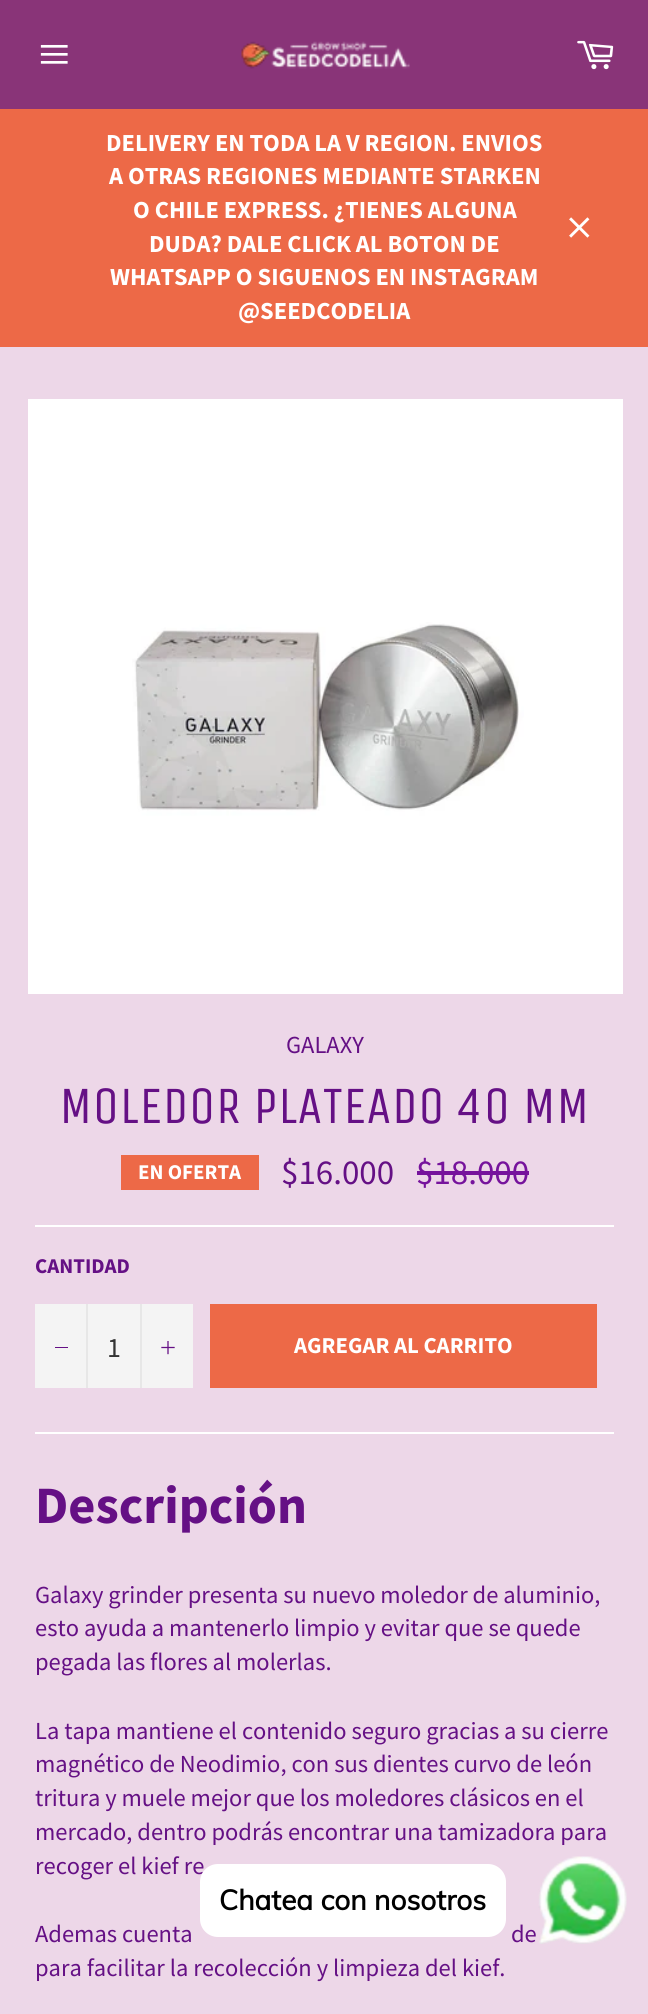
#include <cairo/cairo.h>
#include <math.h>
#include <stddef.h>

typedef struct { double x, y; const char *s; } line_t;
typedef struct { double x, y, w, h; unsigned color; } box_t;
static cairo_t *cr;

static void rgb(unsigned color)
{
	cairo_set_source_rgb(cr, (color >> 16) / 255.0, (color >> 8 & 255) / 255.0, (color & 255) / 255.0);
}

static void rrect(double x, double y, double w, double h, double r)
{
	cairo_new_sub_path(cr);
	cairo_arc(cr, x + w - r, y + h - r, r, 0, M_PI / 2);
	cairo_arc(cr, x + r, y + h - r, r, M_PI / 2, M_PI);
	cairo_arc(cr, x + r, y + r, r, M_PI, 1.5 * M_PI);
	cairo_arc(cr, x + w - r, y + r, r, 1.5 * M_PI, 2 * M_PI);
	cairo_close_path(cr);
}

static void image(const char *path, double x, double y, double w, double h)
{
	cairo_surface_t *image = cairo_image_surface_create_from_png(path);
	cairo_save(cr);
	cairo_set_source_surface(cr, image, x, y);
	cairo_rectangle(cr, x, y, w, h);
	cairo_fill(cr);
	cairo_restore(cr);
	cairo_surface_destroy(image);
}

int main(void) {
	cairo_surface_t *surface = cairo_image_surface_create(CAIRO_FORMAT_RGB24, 648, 2014);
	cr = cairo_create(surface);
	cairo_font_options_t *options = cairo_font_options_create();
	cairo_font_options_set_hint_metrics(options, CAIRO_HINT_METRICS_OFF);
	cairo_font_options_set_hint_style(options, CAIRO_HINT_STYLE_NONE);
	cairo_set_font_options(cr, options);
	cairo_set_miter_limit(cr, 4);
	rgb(0x893478);
	cairo_paint(cr);
	image("img/1.png", 40, 44, 28, 20);
	image("img/2.png", 241, 41, 169, 28);
	image("img/3.png", 577, 40, 37, 30);
	rgb(0xed6947);
	cairo_rectangle(cr, 0, 109, 648, 238);
	cairo_fill(cr);
	image("img/4.png", 569, 217, 21, 21);
	rgb(0xedd7e8);
	cairo_rectangle(cr, 0, 347, 648, 1667);
	cairo_fill(cr);
	image("img/5.png", 28, 399, 595, 595);
	{
		static const box_t items[] = {
			{121, 1155, 138, 35, 0xed6947},
			{417, 1171, 112, 4, 0x76139c},
			{35, 1225, 579, 2, 0xffffff},
			{35, 1304, 158, 84, 0xf4f4f4},
			{86, 1304, 2, 84, 0xe7e7e7},
			{55, 1347, 13, 1, 0x651085},
			{140, 1304, 2, 84, 0xe7e7e7},
		};
		for (size_t i = 0; i < sizeof items / sizeof *items; i++) {
			rgb(items[i].color);
			cairo_rectangle(cr, items[i].x, items[i].y, items[i].w, items[i].h);
			cairo_fill(cr);
		}
	}
	image("img/6.png", 161, 1341, 14, 14);
	rgb(0xed6947);
	cairo_rectangle(cr, 210, 1304, 387, 84);
	cairo_fill(cr);
	rgb(0xffffff);
	cairo_rectangle(cr, 35, 1432, 579, 2);
	cairo_fill(cr);
	image("img/7.png", 538, 1856, 89, 88);
	cairo_select_font_face(cr, "Source Sans Pro", CAIRO_FONT_SLANT_NORMAL, CAIRO_FONT_WEIGHT_BOLD);
	cairo_set_font_size(cr, 24.5);
	{
		static const line_t items[] = {
			{106, 151, "DELIVERY EN TODA LA V REGION. ENVIOS"},
			{109, 184, "A OTRAS REGIONES MEDIANTE STARKEN"},
			{133, 218, "O CHILE EXPRESS. ¿TIENES ALGUNA"},
			{149, 252, "DUDA? DALE CLICK AL BOTON DE"},
			{110, 285, "WHATSAPP O SIGUENOS EN INSTAGRAM"},
			{238, 319, "@SEEDCODELIA"},
		};
		for (size_t i = 0; i < sizeof items / sizeof *items; i++) {
			cairo_move_to(cr, items[i].x, items[i].y);
			cairo_show_text(cr, items[i].s);
		}
	}
	cairo_select_font_face(cr, "Source Sans Pro", CAIRO_FONT_SLANT_NORMAL, CAIRO_FONT_WEIGHT_NORMAL);
	rgb(0x651085);
	cairo_move_to(cr, 286, 1053);
	cairo_show_text(cr, "GALAXY");
	cairo_select_font_face(cr, "Unica One", CAIRO_FONT_SLANT_NORMAL, CAIRO_FONT_WEIGHT_NORMAL);
	cairo_set_font_size(cr, 52.5);
	cairo_move_to(cr, 59, 1123);
	cairo_show_text(cr, "MOLEDOR PLATEADO 40 MM");
	cairo_select_font_face(cr, "Source Sans Pro", CAIRO_FONT_SLANT_NORMAL, CAIRO_FONT_WEIGHT_BOLD);
	cairo_set_font_size(cr, 21);
	rgb(0xffffff);
	cairo_move_to(cr, 138, 1179);
	cairo_show_text(cr, "EN OFERTA");
	cairo_select_font_face(cr, "Source Sans Pro", CAIRO_FONT_SLANT_NORMAL, CAIRO_FONT_WEIGHT_NORMAL);
	cairo_set_font_size(cr, 35);
	rgb(0x651085);
	cairo_move_to(cr, 281, 1184);
	cairo_show_text(cr, "$16.000");
	rgb(0x76139c);
	cairo_move_to(cr, 416, 1184);
	cairo_show_text(cr, "$18.000");
	cairo_select_font_face(cr, "Source Sans Pro", CAIRO_FONT_SLANT_NORMAL, CAIRO_FONT_WEIGHT_BOLD);
	cairo_set_font_size(cr, 21);
	rgb(0x651085);
	cairo_move_to(cr, 35, 1273);
	cairo_show_text(cr, "CANTIDAD");
	cairo_select_font_face(cr, "Source Sans Pro", CAIRO_FONT_SLANT_NORMAL, CAIRO_FONT_WEIGHT_NORMAL);
	cairo_set_font_size(cr, 28);
	rgb(0x333333);
	cairo_move_to(cr, 107, 1357);
	cairo_show_text(cr, "1");
	cairo_select_font_face(cr, "Source Sans Pro", CAIRO_FONT_SLANT_NORMAL, CAIRO_FONT_WEIGHT_BOLD);
	cairo_set_font_size(cr, 22.75);
	rgb(0xffffff);
	cairo_move_to(cr, 294, 1353);
	cairo_show_text(cr, "AGREGAR AL CARRITO");
	cairo_set_font_size(cr, 52.5);
	rgb(0x651085);
	cairo_move_to(cr, 35, 1523);
	cairo_show_text(cr, "Descripción");
	cairo_select_font_face(cr, "Source Sans Pro", CAIRO_FONT_SLANT_NORMAL, CAIRO_FONT_WEIGHT_NORMAL);
	cairo_set_font_size(cr, 24.5);
	{
		static const line_t items[] = {
			{35, 1603, "Galaxy grinder presenta su nuevo moledor de aluminio,"},
			{35, 1636, "esto ayuda a mantenerlo limpio y evitar que se quede"},
			{35, 1670, "pegada las flores al molerlas."},
			{35, 1739, "La tapa mantiene el contenido seguro gracias a su cierre"},
			{35, 1772, "magnético de Neodimio, con sus dientes curvo de león"},
			{35, 1806, "tritura y muele mejor que los moledores clásicos en el"},
			{35, 1840, "mercado, dentro podrás encontrar una tamizadora para"},
			{35, 1874, "recoger el kief re"},
			{35, 1942, "Ademas cuenta"},
			{511, 1942, "de"},
			{35, 1976, "para facilitar la recolección y limpieza del kief."},
		};
		for (size_t i = 0; i < sizeof items / sizeof *items; i++) {
			cairo_move_to(cr, items[i].x, items[i].y);
			cairo_show_text(cr, items[i].s);
		}
	}
	rgb(0xffffff);
	rrect(200, 1864, 306, 73, 18);
	cairo_fill(cr);
	cairo_select_font_face(cr, "Muli", CAIRO_FONT_SLANT_NORMAL, CAIRO_FONT_WEIGHT_BOLD);
	cairo_set_font_size(cr, 28);
	rgb(0x000000);
	cairo_move_to(cr, 219, 1910);
	cairo_show_text(cr, "Chatea con nosotros");
	cairo_surface_write_to_png(surface, "page.png");
	cairo_font_options_destroy(options);
	cairo_destroy(cr);
	cairo_surface_destroy(surface);
	return 0;
}
